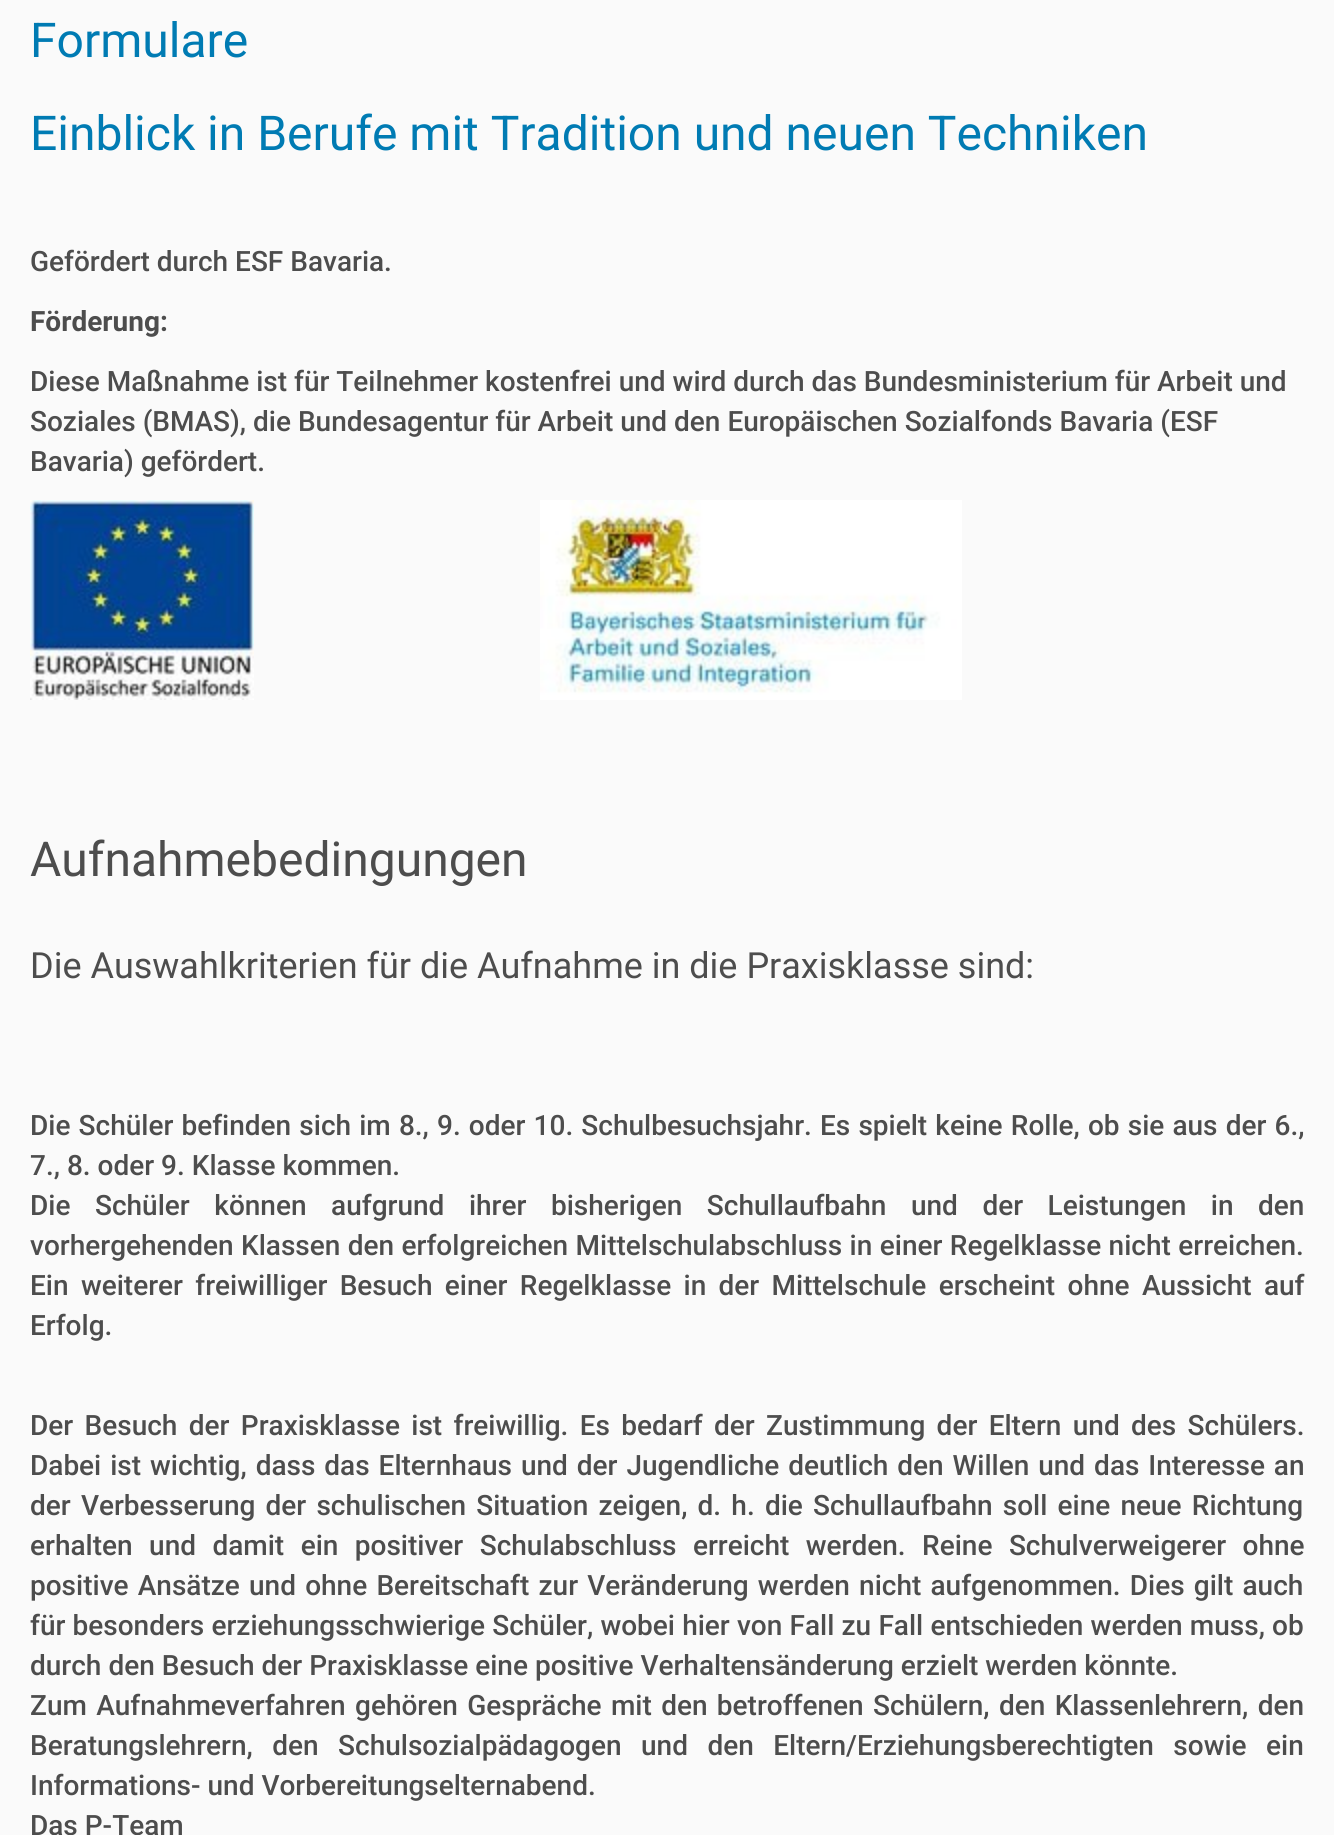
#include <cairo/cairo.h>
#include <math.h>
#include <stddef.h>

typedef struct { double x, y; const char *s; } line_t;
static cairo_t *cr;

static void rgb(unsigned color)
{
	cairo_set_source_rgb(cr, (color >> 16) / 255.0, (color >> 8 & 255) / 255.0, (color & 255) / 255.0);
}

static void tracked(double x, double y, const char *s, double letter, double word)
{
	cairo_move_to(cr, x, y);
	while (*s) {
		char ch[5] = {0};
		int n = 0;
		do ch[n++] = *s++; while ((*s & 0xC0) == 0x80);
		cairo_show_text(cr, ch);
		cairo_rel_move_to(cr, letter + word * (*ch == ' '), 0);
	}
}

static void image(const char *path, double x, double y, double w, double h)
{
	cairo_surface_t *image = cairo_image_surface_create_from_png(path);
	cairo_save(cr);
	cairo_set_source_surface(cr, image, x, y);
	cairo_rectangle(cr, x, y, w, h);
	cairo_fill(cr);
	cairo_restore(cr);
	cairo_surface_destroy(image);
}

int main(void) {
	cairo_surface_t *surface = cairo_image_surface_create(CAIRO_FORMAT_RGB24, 1334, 1835);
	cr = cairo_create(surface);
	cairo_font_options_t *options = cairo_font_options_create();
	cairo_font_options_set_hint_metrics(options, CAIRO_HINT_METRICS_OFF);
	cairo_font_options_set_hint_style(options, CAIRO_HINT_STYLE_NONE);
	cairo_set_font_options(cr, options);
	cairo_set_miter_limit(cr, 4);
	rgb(0xfafafa);
	cairo_paint(cr);
	image("img/1.png", 30, 500, 224, 200);
	image("img/2.png", 540, 500, 422, 200);
	cairo_select_font_face(cr, "Roboto", CAIRO_FONT_SLANT_NORMAL, CAIRO_FONT_WEIGHT_NORMAL);
	cairo_set_font_size(cr, 48);
	rgb(0x007bb3);
	cairo_move_to(cr, 30, 57);
	cairo_show_text(cr, "Formulare");
	cairo_move_to(cr, 30, 150);
	cairo_show_text(cr, "Einblick in Berufe mit Tradition und neuen Techniken");
	cairo_select_font_face(cr, "Roboto Medium", CAIRO_FONT_SLANT_NORMAL, CAIRO_FONT_WEIGHT_NORMAL);
	cairo_set_font_size(cr, 28);
	rgb(0x4d4d4d);
	cairo_move_to(cr, 30, 271);
	cairo_show_text(cr, "Gefördert durch ESF Bavaria.");
	cairo_select_font_face(cr, "Roboto", CAIRO_FONT_SLANT_NORMAL, CAIRO_FONT_WEIGHT_BOLD);
	cairo_move_to(cr, 30, 331);
	cairo_show_text(cr, "Förderung:");
	cairo_select_font_face(cr, "Roboto Medium", CAIRO_FONT_SLANT_NORMAL, CAIRO_FONT_WEIGHT_NORMAL);
	{
		static const line_t items[] = {
			{30, 391, "Diese Maßnahme ist für Teilnehmer kostenfrei und wird durch das Bundesministerium für Arbeit und"},
			{30, 431, "Soziales (BMAS), die Bundesagentur für Arbeit und den Europäischen Sozialfonds Bavaria (ESF"},
			{30, 471, "Bavaria) gefördert."},
		};
		for (size_t i = 0; i < sizeof items / sizeof *items; i++) {
			cairo_move_to(cr, items[i].x, items[i].y);
			cairo_show_text(cr, items[i].s);
		}
	}
	cairo_select_font_face(cr, "Roboto", CAIRO_FONT_SLANT_NORMAL, CAIRO_FONT_WEIGHT_NORMAL);
	cairo_set_font_size(cr, 48);
	cairo_move_to(cr, 30, 876);
	cairo_show_text(cr, "Aufnahmebedingungen");
	cairo_set_font_size(cr, 36);
	cairo_move_to(cr, 30, 978);
	cairo_show_text(cr, "Die Auswahlkriterien für die Aufnahme in die Praxisklasse sind:");
	cairo_select_font_face(cr, "Roboto Medium", CAIRO_FONT_SLANT_NORMAL, CAIRO_FONT_WEIGHT_NORMAL);
	cairo_set_font_size(cr, 28);
	tracked(30, 1135, "Die Schüler befinden sich im 8., 9. oder 10. Schulbesuchsjahr. Es spielt keine Rolle, ob sie aus der 6.,", 0, 1.2);
	cairo_move_to(cr, 30, 1175);
	cairo_show_text(cr, "7., 8. oder 9. Klasse kommen.");
	tracked(30, 1215, "Die Schüler können aufgrund ihrer bisherigen Schullaufbahn und der Leistungen in den", 0, 17.6);
	tracked(30, 1255, "vorhergehenden Klassen den erfolgreichen Mittelschulabschluss in einer Regelklasse nicht erreichen.", 0, 0.5);
	tracked(30, 1295, "Ein weiterer freiwilliger Besuch einer Regelklasse in der Mittelschule erscheint ohne Aussicht auf", 0, 5.4);
	cairo_move_to(cr, 30, 1335);
	cairo_show_text(cr, "Erfolg.");
	tracked(30, 1435, "Der Besuch der Praxisklasse ist freiwillig. Es bedarf der Zustimmung der Eltern und des Schülers.", 0, 4.4);
	tracked(30, 1475, "Dabei ist wichtig, dass das Elternhaus und der Jugendliche deutlich den Willen und das Interesse an", 0, 2);
	tracked(30, 1515, "der Verbesserung der schulischen Situation zeigen, d. h. die Schullaufbahn soll eine neue Richtung", 0, 3.25);
	tracked(30, 1555, "erhalten und damit ein positiver Schulabschluss erreicht werden. Reine Schulverweigerer ohne", 0, 9.5);
	tracked(30, 1595, "positive Ansätze und ohne Bereitschaft zur Veränderung werden nicht aufgenommen. Dies gilt auch", 0, 2.25);
	tracked(30, 1635, "für besonders erziehungsschwierige Schüler, wobei hier von Fall zu Fall entschieden werden muss, ob", 0, 0.25);
	cairo_move_to(cr, 30, 1675);
	cairo_show_text(cr, "durch den Besuch der Praxisklasse eine positive Verhaltensänderung erzielt werden könnte.");
	tracked(30, 1715, "Zum Aufnahmeverfahren gehören Gespräche mit den betroffenen Schülern, den Klassenlehrern, den", 0, 2.4);
	tracked(30, 1755, "Beratungslehrern, den Schulsozialpädagogen und den Eltern/Erziehungsberechtigten sowie ein", 0, 12.5);
	cairo_move_to(cr, 30, 1795);
	cairo_show_text(cr, "Informations- und Vorbereitungselternabend.");
	cairo_move_to(cr, 30, 1835);
	cairo_show_text(cr, "Das P-Team");
	cairo_surface_write_to_png(surface, "page.png");
	cairo_font_options_destroy(options);
	cairo_destroy(cr);
	cairo_surface_destroy(surface);
	return 0;
}
